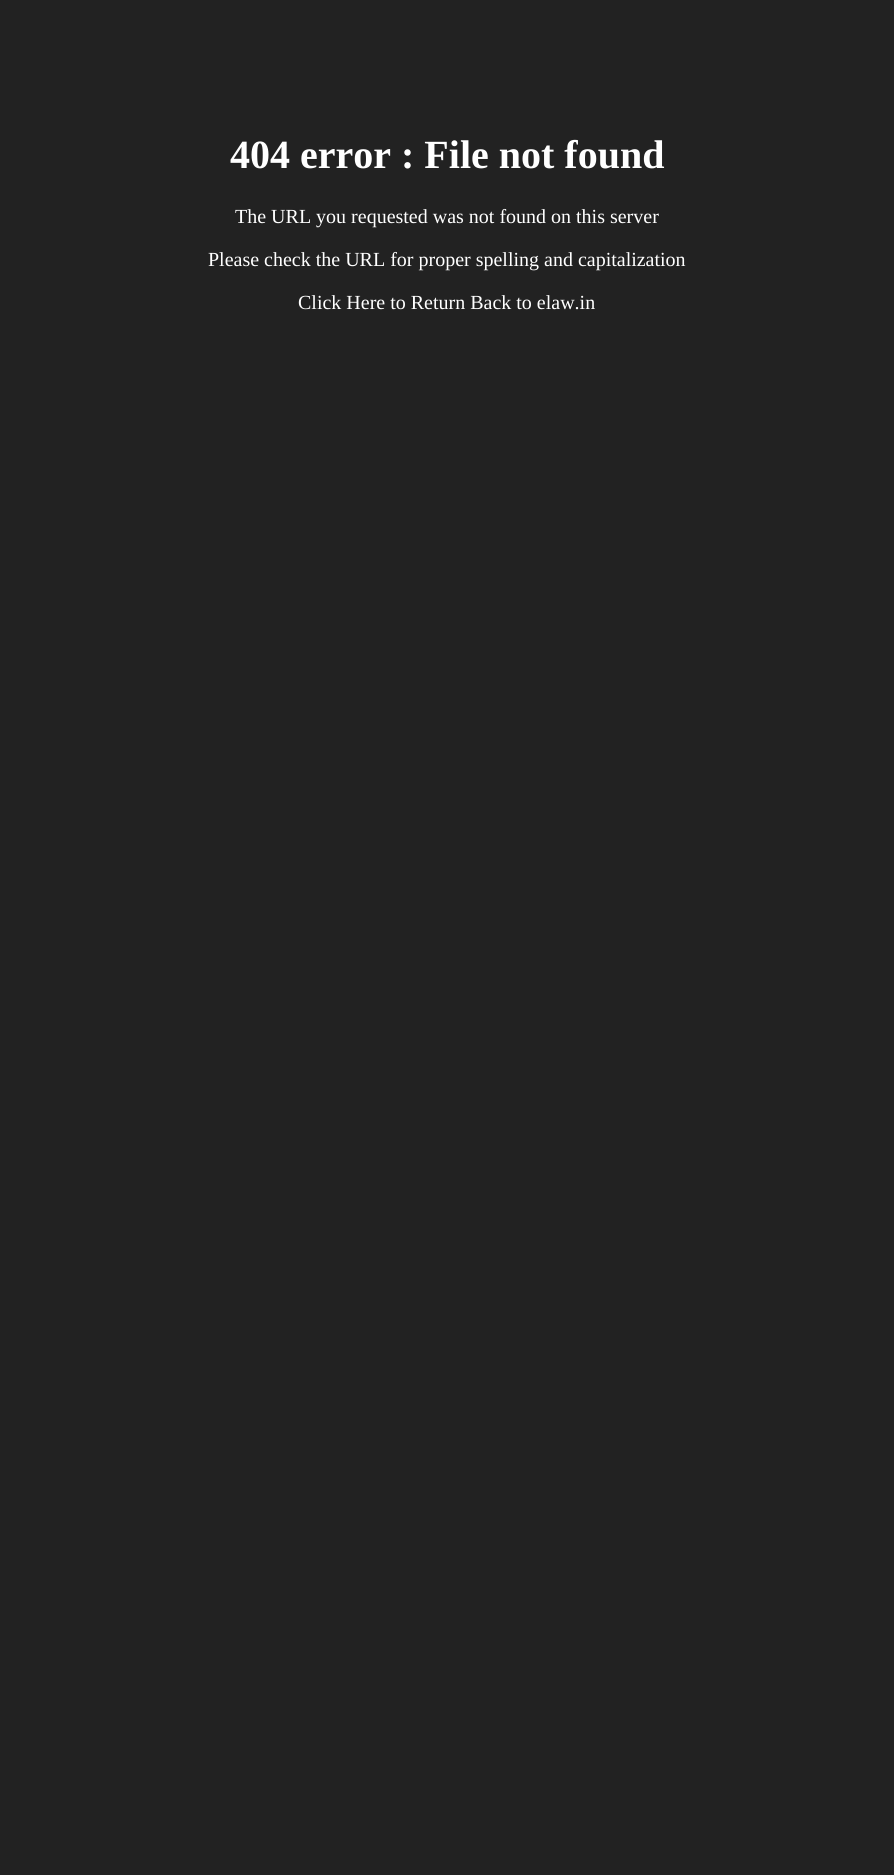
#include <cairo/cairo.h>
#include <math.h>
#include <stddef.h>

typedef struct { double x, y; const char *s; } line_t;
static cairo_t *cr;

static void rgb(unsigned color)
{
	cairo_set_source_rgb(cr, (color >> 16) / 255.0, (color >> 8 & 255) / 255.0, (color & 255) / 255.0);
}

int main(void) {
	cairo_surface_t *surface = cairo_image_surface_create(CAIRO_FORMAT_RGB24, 894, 1875);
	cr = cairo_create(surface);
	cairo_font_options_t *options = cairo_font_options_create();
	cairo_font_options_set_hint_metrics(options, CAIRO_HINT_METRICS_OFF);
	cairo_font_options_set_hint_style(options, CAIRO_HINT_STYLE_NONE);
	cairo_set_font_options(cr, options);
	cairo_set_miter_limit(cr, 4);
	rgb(0x222222);
	cairo_paint(cr);
	cairo_select_font_face(cr, "Liberation Serif", CAIRO_FONT_SLANT_NORMAL, CAIRO_FONT_WEIGHT_BOLD);
	cairo_set_font_size(cr, 40);
	rgb(0xffffff);
	cairo_move_to(cr, 230, 168);
	cairo_show_text(cr, "404 error : File not found");
	cairo_select_font_face(cr, "Liberation Serif", CAIRO_FONT_SLANT_NORMAL, CAIRO_FONT_WEIGHT_NORMAL);
	cairo_set_font_size(cr, 20);
	{
		static const line_t items[] = {
			{235, 223, "The URL you requested was not found on this server"},
			{208, 266, "Please check the URL for proper spelling and capitalization"},
			{298, 309, "Click Here to Return Back to elaw.in"},
		};
		for (size_t i = 0; i < sizeof items / sizeof *items; i++) {
			cairo_move_to(cr, items[i].x, items[i].y);
			cairo_show_text(cr, items[i].s);
		}
	}
	cairo_surface_write_to_png(surface, "page.png");
	cairo_font_options_destroy(options);
	cairo_destroy(cr);
	cairo_surface_destroy(surface);
	return 0;
}
